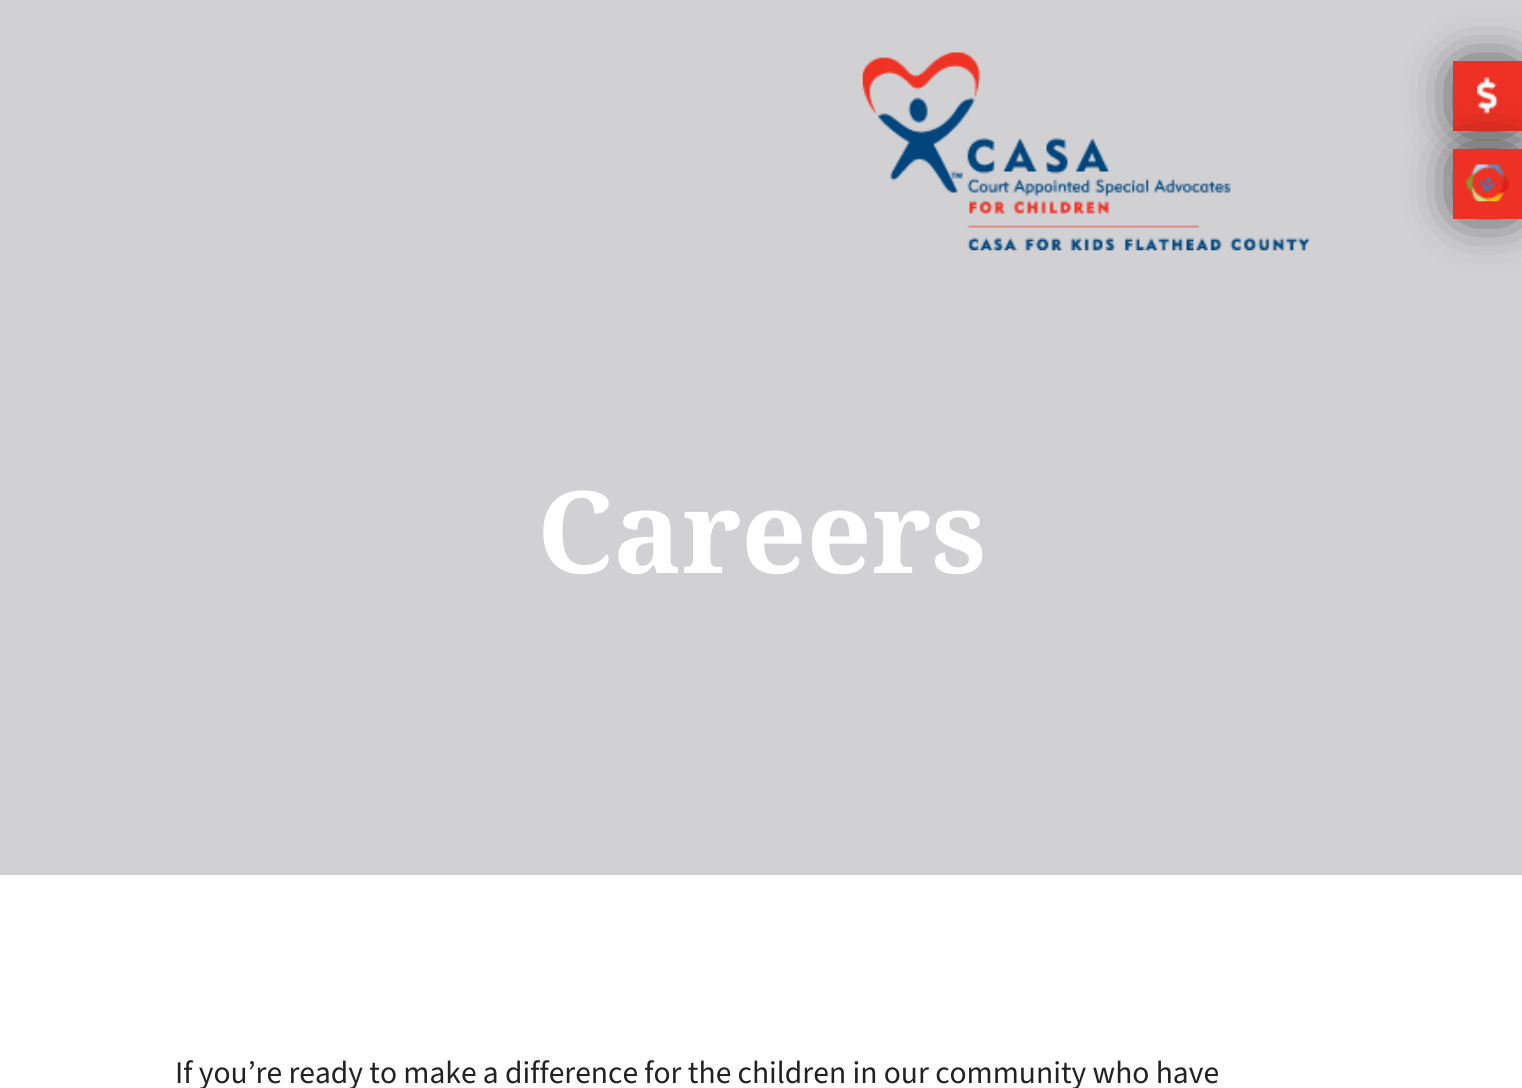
#include <cairo/cairo.h>
#include <math.h>
#include <stddef.h>

static cairo_t *cr;

static void rgb(unsigned color)
{
	cairo_set_source_rgb(cr, (color >> 16) / 255.0, (color >> 8 & 255) / 255.0, (color & 255) / 255.0);
}

static void rrect(double x, double y, double w, double h, double r)
{
	cairo_new_sub_path(cr);
	cairo_arc(cr, x + w - r, y + h - r, r, 0, M_PI / 2);
	cairo_arc(cr, x + r, y + h - r, r, M_PI / 2, M_PI);
	cairo_arc(cr, x + r, y + r, r, M_PI, 1.5 * M_PI);
	cairo_arc(cr, x + w - r, y + r, r, 1.5 * M_PI, 2 * M_PI);
	cairo_close_path(cr);
}

static void soft_shadow(double x, double y, double w, double h, double r, double blur, double alpha)
{
	cairo_push_group_with_content(cr, CAIRO_CONTENT_ALPHA);
	cairo_set_operator(cr, CAIRO_OPERATOR_SOURCE);
	for (int i = 15; i >= -15 && fmin(w, h) + blur * i / 3 > 0; i -= 2) {
		double e = blur * i / 6;
		cairo_set_source_rgba(cr, 0, 0, 0, alpha * erfc((i - 1) / 8.5) / 2);
		rrect(x - e, y - e, w + 2 * e, h + 2 * e, fmax(0, fmin(r + e + blur * .6, fmin(w, h) / 2 + e)));
		cairo_fill(cr);
	}
	cairo_pattern_t *soft = cairo_pop_group(cr);
	cairo_mask(cr, soft);
	cairo_pattern_destroy(soft);
}

static void image(const char *path, double x, double y, double w, double h)
{
	cairo_surface_t *image = cairo_image_surface_create_from_png(path);
	cairo_save(cr);
	cairo_set_source_surface(cr, image, x, y);
	cairo_rectangle(cr, x, y, w, h);
	cairo_fill(cr);
	cairo_restore(cr);
	cairo_surface_destroy(image);
}

int main(void) {
	cairo_surface_t *surface = cairo_image_surface_create(CAIRO_FORMAT_RGB24, 1522, 1088);
	cr = cairo_create(surface);
	cairo_font_options_t *options = cairo_font_options_create();
	cairo_font_options_set_hint_metrics(options, CAIRO_HINT_METRICS_OFF);
	cairo_font_options_set_hint_style(options, CAIRO_HINT_STYLE_NONE);
	cairo_set_font_options(cr, options);
	cairo_set_miter_limit(cr, 4);
	rgb(0xffffff);
	cairo_paint(cr);
	rgb(0xd1d0d3);
	cairo_rectangle(cr, 0, 0, 1522, 875);
	cairo_fill(cr);
	image("img/1.png", 862, 52, 447, 199);
	rgb(0x000000);
	soft_shadow(1465, 74, 45, 45, 0, 26, 1);
	rgb(0xee3124);
	cairo_rectangle(cr, 1453, 61, 69, 70);
	cairo_fill(cr);
	image("img/2.png", 1477, 77, 21, 37);
	rgb(0x000000);
	soft_shadow(1465, 161, 45, 46, 0, 26, 1);
	rgb(0xee3124);
	cairo_rectangle(cr, 1453, 149, 69, 70);
	cairo_fill(cr);
	image("img/3.png", 1466, 164, 44, 38);
	cairo_select_font_face(cr, "Noto Serif", CAIRO_FONT_SLANT_NORMAL, CAIRO_FONT_WEIGHT_BOLD);
	cairo_set_font_size(cr, 114);
	rgb(0xffffff);
	cairo_move_to(cr, 537, 573);
	cairo_show_text(cr, "Careers");
	cairo_select_font_face(cr, "Source Sans 3", CAIRO_FONT_SLANT_NORMAL, CAIRO_FONT_WEIGHT_NORMAL);
	cairo_set_font_size(cr, 31.5);
	rgb(0x222222);
	cairo_move_to(cr, 175, 1083);
	cairo_show_text(cr, "If you’re ready to make a difference for the children in our community who have");
	cairo_surface_write_to_png(surface, "page.png");
	cairo_font_options_destroy(options);
	cairo_destroy(cr);
	cairo_surface_destroy(surface);
	return 0;
}
